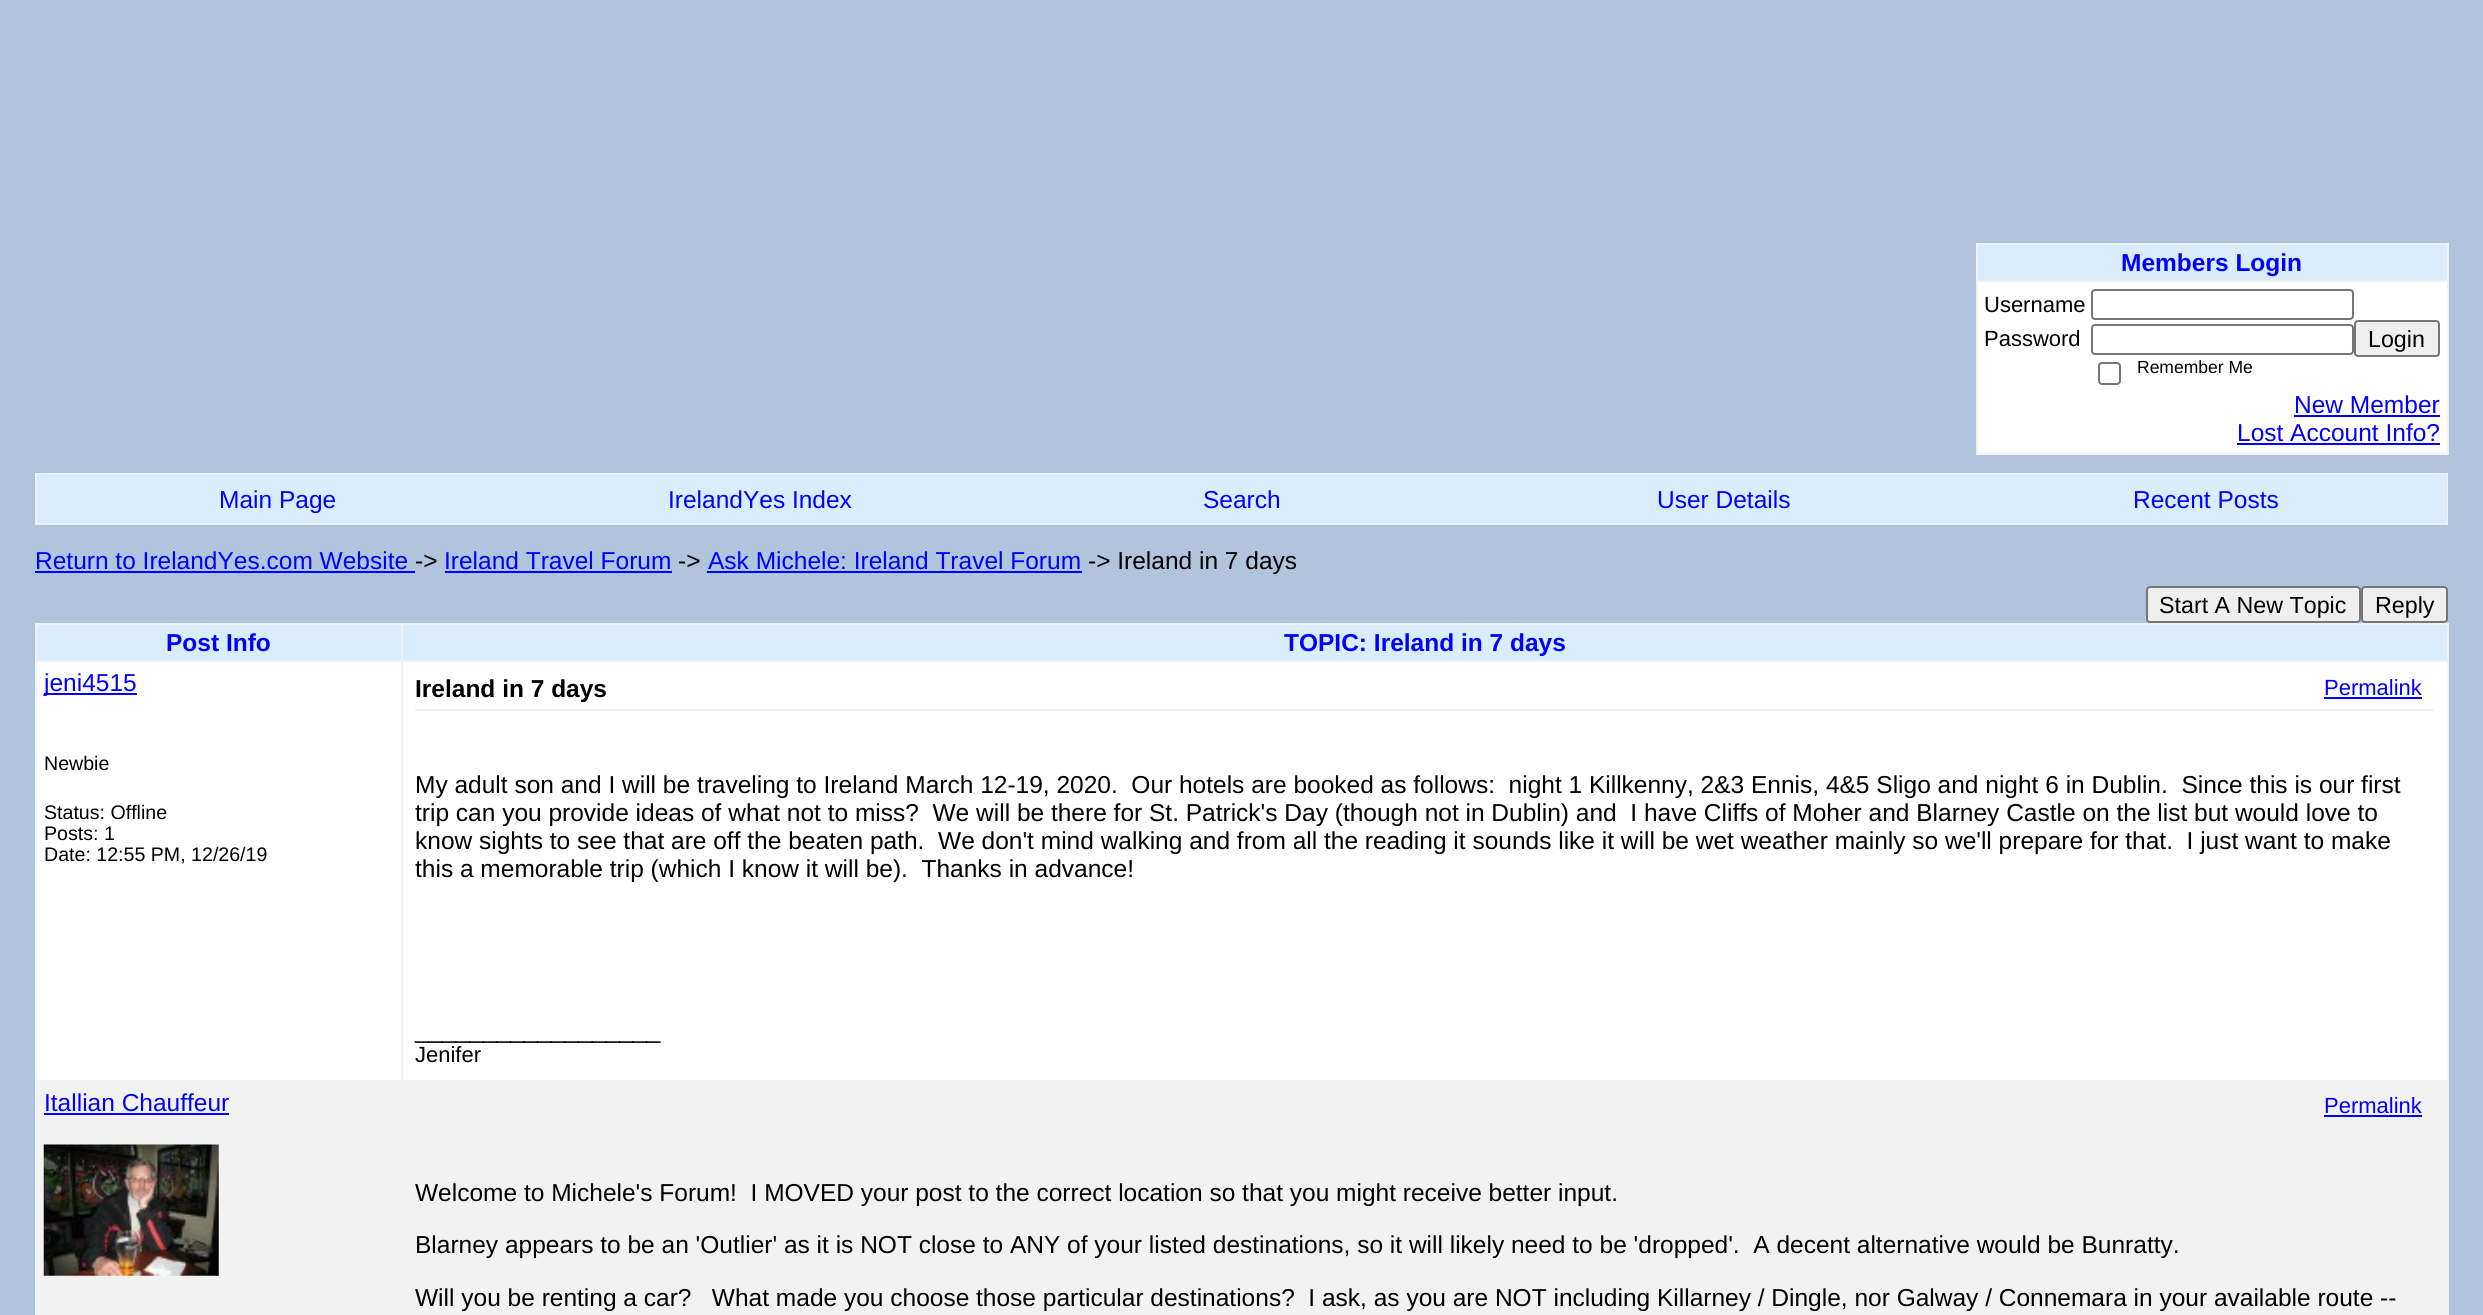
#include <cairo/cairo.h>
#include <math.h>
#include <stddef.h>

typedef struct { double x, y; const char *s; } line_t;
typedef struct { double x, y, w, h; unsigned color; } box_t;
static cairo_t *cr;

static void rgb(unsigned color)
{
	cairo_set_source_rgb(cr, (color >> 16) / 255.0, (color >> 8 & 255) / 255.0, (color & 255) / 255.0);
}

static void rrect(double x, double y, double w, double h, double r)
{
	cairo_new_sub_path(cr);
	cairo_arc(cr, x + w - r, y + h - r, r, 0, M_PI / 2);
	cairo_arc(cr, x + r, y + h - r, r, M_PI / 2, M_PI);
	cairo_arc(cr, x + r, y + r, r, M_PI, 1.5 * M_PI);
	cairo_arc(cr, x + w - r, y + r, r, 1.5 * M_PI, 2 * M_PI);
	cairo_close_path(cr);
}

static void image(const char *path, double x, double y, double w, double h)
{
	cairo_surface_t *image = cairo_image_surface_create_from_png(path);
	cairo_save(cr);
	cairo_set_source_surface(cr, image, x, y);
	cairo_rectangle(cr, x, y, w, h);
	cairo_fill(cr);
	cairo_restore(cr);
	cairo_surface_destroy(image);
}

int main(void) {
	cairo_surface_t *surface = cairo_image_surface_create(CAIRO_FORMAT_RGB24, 2483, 1315);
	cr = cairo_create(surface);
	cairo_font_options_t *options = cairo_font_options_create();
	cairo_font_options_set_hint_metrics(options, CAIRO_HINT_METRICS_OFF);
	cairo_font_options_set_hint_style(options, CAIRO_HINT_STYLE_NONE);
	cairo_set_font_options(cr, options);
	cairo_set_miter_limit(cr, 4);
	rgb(0xb0c4de);
	cairo_paint(cr);
	{
		static const box_t items[] = {
			{1976, 243, 472, 2, 0xf0f3f5},
			{2447, 243, 2, 212, 0xf0f3f5},
			{1976, 453, 472, 2, 0xf0f3f5},
			{1976, 243, 2, 212, 0xf0f3f5},
			{1978, 245, 469, 35, 0xd9edff},
			{1976, 280, 472, 2, 0xf0f3f5},
			{1978, 282, 469, 171, 0xffffff},
		};
		for (size_t i = 0; i < sizeof items / sizeof *items; i++) {
			rgb(items[i].color);
			cairo_rectangle(cr, items[i].x, items[i].y, items[i].w, items[i].h);
			cairo_fill(cr);
		}
	}
	rrect(2092, 290, 261, 29, 3);
	rgb(0x767676);
	cairo_stroke(cr);
	rrect(2092, 325, 261, 29, 3);
	cairo_stroke(cr);
	rgb(0xefefef);
	rrect(2355, 321, 84, 35, 3);
	cairo_fill_preserve(cr);
	rgb(0x767676);
	cairo_stroke(cr);
	rrect(2099, 363, 21, 21, 3);
	cairo_stroke(cr);
	rgb(0x0000ff);
	cairo_rectangle(cr, 2294, 415, 146, 2);
	cairo_fill(cr);
	cairo_rectangle(cr, 2237, 443, 203, 2);
	cairo_fill(cr);
	cairo_rectangle(cr, 36, 474, 2411, 50);
	rgb(0xf0f3f5);
	cairo_stroke(cr);
	{
		static const box_t items[] = {
			{37, 474, 2410, 49, 0xd9edff},
			{35, 571, 380, 2, 0x0000ff},
			{445, 571, 227, 2, 0x0000ff},
			{707, 571, 375, 2, 0x0000ff},
		};
		for (size_t i = 0; i < sizeof items / sizeof *items; i++) {
			rgb(items[i].color);
			cairo_rectangle(cr, items[i].x, items[i].y, items[i].w, items[i].h);
			cairo_fill(cr);
		}
	}
	rgb(0xefefef);
	rrect(2147, 587, 213, 35, 3);
	cairo_fill_preserve(cr);
	rgb(0x767676);
	cairo_stroke(cr);
	rgb(0xefefef);
	rrect(2362, 587, 85, 35, 3);
	cairo_fill_preserve(cr);
	rgb(0x767676);
	cairo_stroke(cr);
	{
		static const box_t items[] = {
			{35, 623, 2413, 2, 0xf0f3f5},
			{2447, 623, 2, 692, 0xf0f3f5},
			{35, 623, 2, 692, 0xf0f3f5},
			{37, 625, 364, 35, 0xd9edff},
			{401, 660, 2047, 2, 0xf0f3f5},
			{401, 1080, 2047, 2, 0xf0f3f5},
			{401, 1080, 2, 235, 0xf0f3f5},
			{35, 1080, 368, 2, 0xf0f3f5},
			{401, 660, 2, 422, 0xf0f3f5},
			{35, 660, 368, 2, 0xf0f3f5},
			{401, 623, 2, 39, 0xf0f3f5},
			{403, 625, 2044, 35, 0xd9edff},
			{37, 662, 364, 418, 0xffffff},
			{44, 693, 93, 2, 0x0000ff},
			{403, 662, 2044, 418, 0xffffff},
			{2324, 697, 98, 2, 0x0000ff},
			{415, 709, 2019, 2, 0xf0f3f5},
			{37, 1082, 364, 233, 0xf2f2f2},
			{44, 1113, 185, 2, 0x0000ff},
		};
		for (size_t i = 0; i < sizeof items / sizeof *items; i++) {
			rgb(items[i].color);
			cairo_rectangle(cr, items[i].x, items[i].y, items[i].w, items[i].h);
			cairo_fill(cr);
		}
	}
	image("img/1.png", 43, 1144, 176, 132);
	rgb(0xf2f2f2);
	cairo_rectangle(cr, 403, 1082, 2044, 233);
	cairo_fill(cr);
	rgb(0x0000ff);
	cairo_rectangle(cr, 2324, 1115, 98, 2);
	cairo_fill(cr);
	cairo_select_font_face(cr, "Liberation Sans", CAIRO_FONT_SLANT_NORMAL, CAIRO_FONT_WEIGHT_BOLD);
	cairo_set_font_size(cr, 24.5);
	cairo_move_to(cr, 2121, 271);
	cairo_show_text(cr, "Members Login");
	cairo_select_font_face(cr, "Liberation Sans", CAIRO_FONT_SLANT_NORMAL, CAIRO_FONT_WEIGHT_NORMAL);
	cairo_set_font_size(cr, 22);
	rgb(0x000000);
	cairo_move_to(cr, 1984, 312);
	cairo_show_text(cr, "Username");
	cairo_move_to(cr, 1984, 346);
	cairo_show_text(cr, "Password");
	cairo_set_font_size(cr, 23.25);
	cairo_move_to(cr, 2368, 347);
	cairo_show_text(cr, "Login");
	cairo_set_font_size(cr, 17.5);
	cairo_move_to(cr, 2137, 373);
	cairo_show_text(cr, "Remember Me");
	cairo_set_font_size(cr, 24.5);
	rgb(0x0000ff);
	{
		static const line_t items[] = {
			{2294, 413, "New Member"},
			{2237, 441, "Lost Account Info?"},
			{219, 508, "Main Page"},
			{668, 508, "IrelandYes Index"},
			{1203, 508, "Search"},
			{1657, 508, "User Details"},
			{2133, 508, "Recent Posts"},
			{35, 569, "Return to IrelandYes.com Website"},
		};
		for (size_t i = 0; i < sizeof items / sizeof *items; i++) {
			cairo_move_to(cr, items[i].x, items[i].y);
			cairo_show_text(cr, items[i].s);
		}
	}
	rgb(0x000000);
	cairo_move_to(cr, 415, 569);
	cairo_show_text(cr, "->");
	rgb(0x0000ff);
	cairo_move_to(cr, 444, 569);
	cairo_show_text(cr, "Ireland Travel Forum");
	rgb(0x000000);
	cairo_move_to(cr, 678, 569);
	cairo_show_text(cr, "->");
	rgb(0x0000ff);
	cairo_move_to(cr, 708, 569);
	cairo_show_text(cr, "Ask Michele: Ireland Travel Forum");
	rgb(0x000000);
	cairo_move_to(cr, 1088, 569);
	cairo_show_text(cr, "-> Ireland in 7 days");
	cairo_set_font_size(cr, 23.25);
	cairo_move_to(cr, 2159, 613);
	cairo_show_text(cr, "Start A New Topic");
	cairo_move_to(cr, 2375, 613);
	cairo_show_text(cr, "Reply");
	cairo_select_font_face(cr, "Liberation Sans", CAIRO_FONT_SLANT_NORMAL, CAIRO_FONT_WEIGHT_BOLD);
	cairo_set_font_size(cr, 24.5);
	rgb(0x0000ff);
	cairo_move_to(cr, 166, 651);
	cairo_show_text(cr, "Post Info");
	cairo_move_to(cr, 1284, 651);
	cairo_show_text(cr, "TOPIC: Ireland in 7 days");
	cairo_select_font_face(cr, "Liberation Sans", CAIRO_FONT_SLANT_NORMAL, CAIRO_FONT_WEIGHT_NORMAL);
	cairo_move_to(cr, 44, 691);
	cairo_show_text(cr, "jeni4515");
	cairo_set_font_size(cr, 19.6);
	rgb(0x000000);
	{
		static const line_t items[] = {
			{44, 770, "Newbie"},
			{44, 819, "Status: Offline"},
			{44, 840, "Posts: 1"},
			{44, 861, "Date: 12:55 PM, 12/26/19"},
		};
		for (size_t i = 0; i < sizeof items / sizeof *items; i++) {
			cairo_move_to(cr, items[i].x, items[i].y);
			cairo_show_text(cr, items[i].s);
		}
	}
	cairo_select_font_face(cr, "Liberation Sans", CAIRO_FONT_SLANT_NORMAL, CAIRO_FONT_WEIGHT_BOLD);
	cairo_set_font_size(cr, 24.5);
	cairo_move_to(cr, 415, 697);
	cairo_show_text(cr, "Ireland in 7 days");
	cairo_select_font_face(cr, "Liberation Sans", CAIRO_FONT_SLANT_NORMAL, CAIRO_FONT_WEIGHT_NORMAL);
	cairo_set_font_size(cr, 22);
	rgb(0x0000ff);
	cairo_move_to(cr, 2324, 695);
	cairo_show_text(cr, "Permalink");
	cairo_set_font_size(cr, 24.5);
	rgb(0x000000);
	{
		static const line_t items[] = {
			{415, 793, "My adult son and I will be traveling to Ireland March 12-19, 2020.  Our hotels are booked as follows:  night 1 Killkenny, 2&3 Ennis, 4&5 Sligo and night 6 in Dublin.  Since this is our first"},
			{415, 821, "trip can you provide ideas of what not to miss?  We will be there for St. Patrick's Day (though not in Dublin) and  I have Cliffs of Moher and Blarney Castle on the list but would love to"},
			{415, 849, "know sights to see that are off the beaten path.  We don't mind walking and from all the reading it sounds like it will be wet weather mainly so we'll prepare for that.  I just want to make"},
			{415, 877, "this a memorable trip (which I know it will be).  Thanks in advance!"},
			{415, 1038, "__________________"},
		};
		for (size_t i = 0; i < sizeof items / sizeof *items; i++) {
			cairo_move_to(cr, items[i].x, items[i].y);
			cairo_show_text(cr, items[i].s);
		}
	}
	cairo_set_font_size(cr, 22);
	cairo_move_to(cr, 415, 1062);
	cairo_show_text(cr, "Jenifer");
	cairo_set_font_size(cr, 24.5);
	rgb(0x0000ff);
	cairo_move_to(cr, 44, 1111);
	cairo_show_text(cr, "Itallian Chauffeur");
	cairo_set_font_size(cr, 22);
	cairo_move_to(cr, 2324, 1113);
	cairo_show_text(cr, "Permalink");
	cairo_set_font_size(cr, 24.5);
	rgb(0x000000);
	{
		static const line_t items[] = {
			{415, 1201, "Welcome to Michele's Forum!  I MOVED your post to the correct location so that you might receive better input."},
			{415, 1253, "Blarney appears to be an 'Outlier' as it is NOT close to ANY of your listed destinations, so it will likely need to be 'dropped'.  A decent alternative would be Bunratty."},
			{415, 1306, "Will you be renting a car?   What made you choose those particular destinations?  I ask, as you are NOT including Killarney / Dingle, nor Galway / Connemara in your available route --"},
		};
		for (size_t i = 0; i < sizeof items / sizeof *items; i++) {
			cairo_move_to(cr, items[i].x, items[i].y);
			cairo_show_text(cr, items[i].s);
		}
	}
	cairo_surface_write_to_png(surface, "page.png");
	cairo_font_options_destroy(options);
	cairo_destroy(cr);
	cairo_surface_destroy(surface);
	return 0;
}
